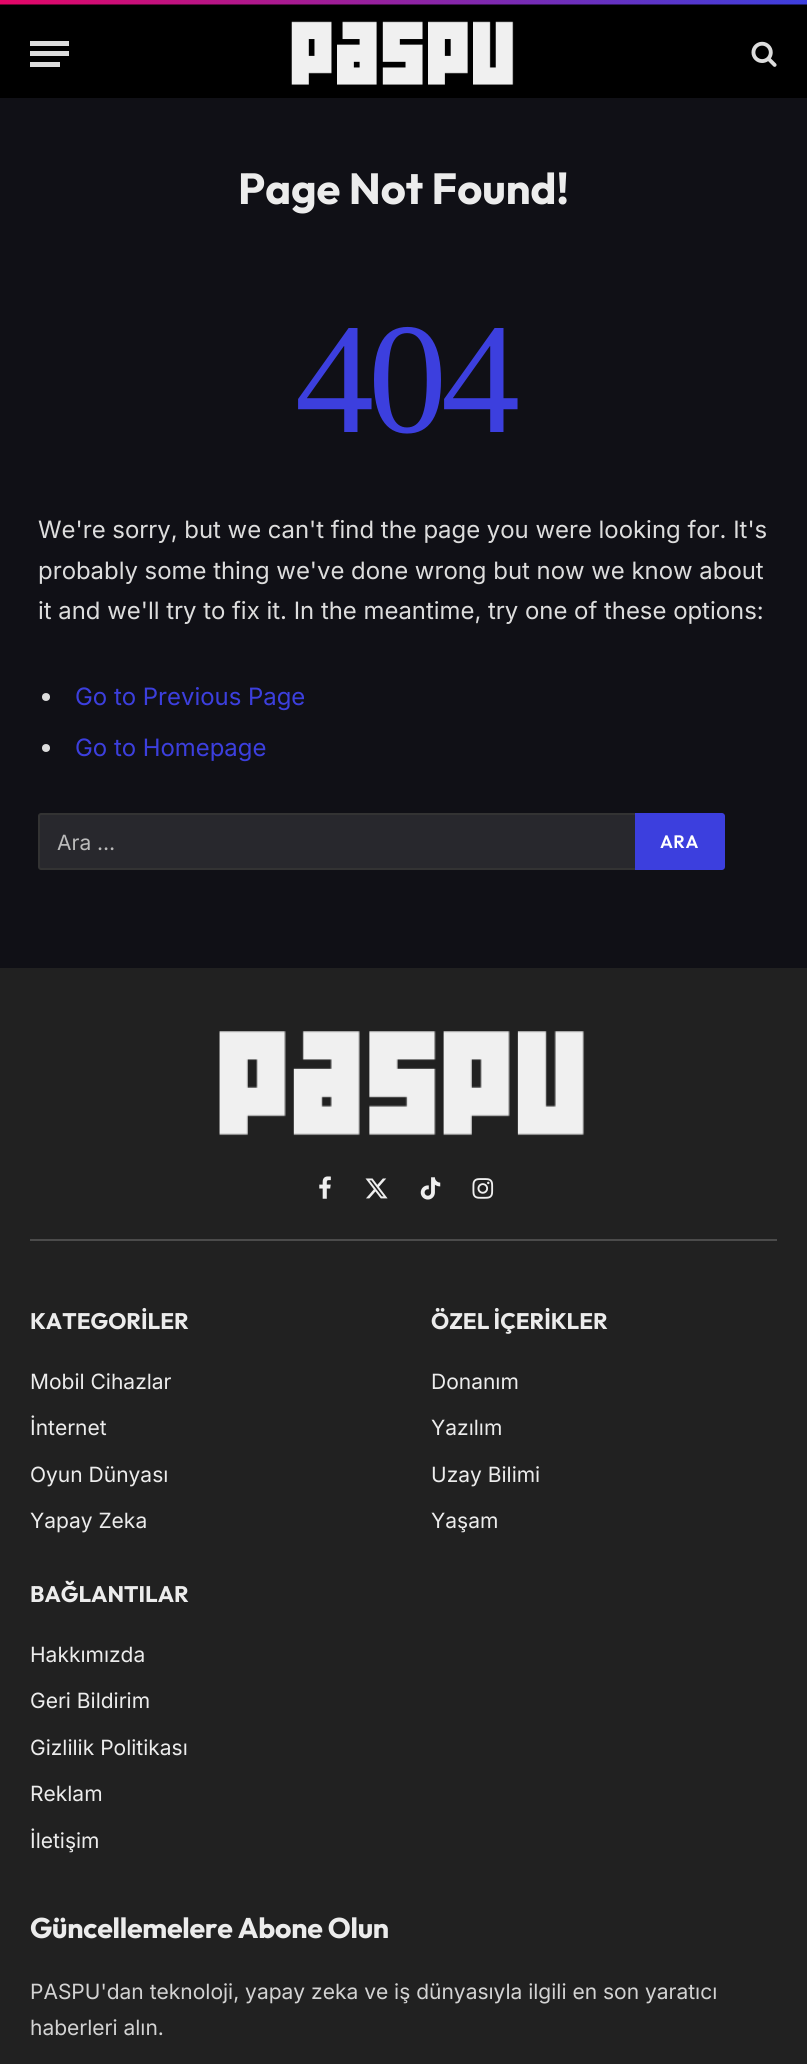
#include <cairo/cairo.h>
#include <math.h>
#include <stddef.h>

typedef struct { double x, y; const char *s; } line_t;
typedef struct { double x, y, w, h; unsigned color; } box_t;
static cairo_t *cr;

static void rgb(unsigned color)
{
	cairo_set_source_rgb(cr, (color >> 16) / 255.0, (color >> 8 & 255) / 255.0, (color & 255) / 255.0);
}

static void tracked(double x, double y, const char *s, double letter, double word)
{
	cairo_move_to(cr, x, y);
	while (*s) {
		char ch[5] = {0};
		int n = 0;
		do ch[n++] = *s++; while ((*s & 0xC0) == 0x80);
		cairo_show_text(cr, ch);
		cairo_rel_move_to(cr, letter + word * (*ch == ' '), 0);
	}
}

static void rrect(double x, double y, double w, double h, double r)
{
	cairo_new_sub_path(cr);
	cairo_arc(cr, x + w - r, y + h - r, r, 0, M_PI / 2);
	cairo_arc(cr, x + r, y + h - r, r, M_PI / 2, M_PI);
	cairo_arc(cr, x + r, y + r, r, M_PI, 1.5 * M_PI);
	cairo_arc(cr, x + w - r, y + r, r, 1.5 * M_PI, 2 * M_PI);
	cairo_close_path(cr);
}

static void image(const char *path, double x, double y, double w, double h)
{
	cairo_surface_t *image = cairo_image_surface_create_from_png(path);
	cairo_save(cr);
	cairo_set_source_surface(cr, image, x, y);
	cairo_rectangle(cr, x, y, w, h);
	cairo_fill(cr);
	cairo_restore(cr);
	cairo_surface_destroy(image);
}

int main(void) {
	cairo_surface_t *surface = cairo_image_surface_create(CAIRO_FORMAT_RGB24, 807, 2064);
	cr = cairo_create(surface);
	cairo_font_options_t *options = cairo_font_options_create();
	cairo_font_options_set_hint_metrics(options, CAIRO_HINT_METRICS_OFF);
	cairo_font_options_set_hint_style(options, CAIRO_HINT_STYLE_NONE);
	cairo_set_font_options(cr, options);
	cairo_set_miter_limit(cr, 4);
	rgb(0x101016);
	cairo_paint(cr);
	rgb(0x000000);
	cairo_rectangle(cr, 0, 4, 807, 94);
	cairo_fill(cr);
	image("img/1.png", 0, 0, 807, 5);
	{
		static const box_t items[] = {
			{30, 62, 30, 5, 0xdddddd},
			{30, 41, 39, 5, 0xdddddd},
			{30, 51, 39, 5, 0xdddddd},
		};
		for (size_t i = 0; i < sizeof items / sizeof *items; i++) {
			rgb(items[i].color);
			cairo_rectangle(cr, items[i].x, items[i].y, items[i].w, items[i].h);
			cairo_fill(cr);
		}
	}
	image("img/2.png", 291, 21, 223, 64);
	image("img/3.png", 751, 41, 26, 26);
	cairo_arc(cr, 46, 697, 4, 0, 2 * M_PI);
	cairo_fill(cr);
	cairo_arc(cr, 46, 748, 4, 0, 2 * M_PI);
	cairo_fill(cr);
	rgb(0x28282d);
	rrect(39, 814, 598, 55, 2);
	cairo_fill_preserve(cr);
	rgb(0x333333);
	cairo_stroke(cr);
	rgb(0x3c3fde);
	cairo_new_path(cr);
	cairo_move_to(cr, 635, 813);
	cairo_line_to(cr, 722, 813);
	cairo_curve_to(cr, 723.5, 813, 725, 814.5, 725, 816);
	cairo_line_to(cr, 725, 867);
	cairo_curve_to(cr, 725, 868.5, 723.5, 870, 722, 870);
	cairo_line_to(cr, 635, 870);
	cairo_close_path(cr);
	cairo_fill(cr);
	rgb(0x212121);
	cairo_rectangle(cr, 0, 968, 807, 1096);
	cairo_fill(cr);
	image("img/4.png", 219, 1031, 366, 105);
	image("img/5.png", 319, 1176, 12, 23);
	image("img/6.png", 365, 1178, 23, 21);
	image("img/7.png", 420, 1177, 21, 23);
	image("img/8.png", 472, 1178, 22, 21);
	rgb(0x4b4b4b);
	cairo_rectangle(cr, 30, 1239, 747, 2);
	cairo_fill(cr);
	cairo_select_font_face(cr, "Outfit", CAIRO_FONT_SLANT_NORMAL, CAIRO_FONT_WEIGHT_BOLD);
	cairo_set_font_size(cr, 43.5);
	rgb(0xececec);
	cairo_move_to(cr, 238, 204);
	cairo_show_text(cr, "Page Not Found!");
	cairo_select_font_face(cr, "Liberation Serif", CAIRO_FONT_SLANT_NORMAL, CAIRO_FONT_WEIGHT_NORMAL);
	cairo_set_font_size(cr, 158);
	rgb(0x3c3fde);
	tracked(295, 432, "404", -6, 0);
	cairo_select_font_face(cr, "Inter", CAIRO_FONT_SLANT_NORMAL, CAIRO_FONT_WEIGHT_NORMAL);
	cairo_set_font_size(cr, 23.9);
	rgb(0xdddddd);
	{
		static const line_t items[] = {
			{38, 538, "We're sorry, but we can't find the page you were looking for. It's"},
			{38, 579, "probably some thing we've done wrong but now we know about"},
			{38, 619, "it and we'll try to fix it. In the meantime, try one of these options:"},
		};
		for (size_t i = 0; i < sizeof items / sizeof *items; i++) {
			cairo_move_to(cr, items[i].x, items[i].y);
			cairo_show_text(cr, items[i].s);
		}
	}
	rgb(0x3c3fde);
	cairo_move_to(cr, 75, 705);
	cairo_show_text(cr, "Go to Previous Page");
	cairo_move_to(cr, 75, 756);
	cairo_show_text(cr, "Go to Homepage");
	cairo_set_font_size(cr, 21);
	rgb(0xbbbbbb);
	cairo_move_to(cr, 57, 850);
	cairo_show_text(cr, "Ara …");
	cairo_select_font_face(cr, "Outfit SemiBold", CAIRO_FONT_SLANT_NORMAL, CAIRO_FONT_WEIGHT_NORMAL);
	cairo_set_font_size(cr, 18);
	rgb(0xffffff);
	tracked(660, 848, "ARA", 0.5, 0);
	cairo_select_font_face(cr, "Outfit", CAIRO_FONT_SLANT_NORMAL, CAIRO_FONT_WEIGHT_BOLD);
	cairo_set_font_size(cr, 22.5);
	rgb(0xececec);
	cairo_move_to(cr, 30, 1329);
	cairo_show_text(cr, "KATEGORİLER");
	cairo_select_font_face(cr, "Inter", CAIRO_FONT_SLANT_NORMAL, CAIRO_FONT_WEIGHT_NORMAL);
	cairo_set_font_size(cr, 21);
	{
		static const line_t items[] = {
			{30, 1389, "Mobil Cihazlar"},
			{30, 1435, "İnternet"},
			{30, 1482, "Oyun Dünyası"},
			{30, 1528, "Yapay Zeka"},
		};
		for (size_t i = 0; i < sizeof items / sizeof *items; i++) {
			cairo_move_to(cr, items[i].x, items[i].y);
			cairo_show_text(cr, items[i].s);
		}
	}
	cairo_select_font_face(cr, "Outfit", CAIRO_FONT_SLANT_NORMAL, CAIRO_FONT_WEIGHT_BOLD);
	cairo_set_font_size(cr, 22.5);
	cairo_move_to(cr, 431, 1329);
	cairo_show_text(cr, "ÖZEL İÇERİKLER");
	cairo_select_font_face(cr, "Inter", CAIRO_FONT_SLANT_NORMAL, CAIRO_FONT_WEIGHT_NORMAL);
	cairo_set_font_size(cr, 21);
	{
		static const line_t items[] = {
			{431, 1389, "Donanım"},
			{431, 1435, "Yazılım"},
			{431, 1482, "Uzay Bilimi"},
			{431, 1528, "Yaşam"},
		};
		for (size_t i = 0; i < sizeof items / sizeof *items; i++) {
			cairo_move_to(cr, items[i].x, items[i].y);
			cairo_show_text(cr, items[i].s);
		}
	}
	cairo_select_font_face(cr, "Outfit", CAIRO_FONT_SLANT_NORMAL, CAIRO_FONT_WEIGHT_BOLD);
	cairo_set_font_size(cr, 22.5);
	cairo_move_to(cr, 30, 1602);
	cairo_show_text(cr, "BAĞLANTILAR");
	cairo_select_font_face(cr, "Inter", CAIRO_FONT_SLANT_NORMAL, CAIRO_FONT_WEIGHT_NORMAL);
	cairo_set_font_size(cr, 21);
	{
		static const line_t items[] = {
			{30, 1662, "Hakkımızda"},
			{30, 1708, "Geri Bildirim"},
			{30, 1755, "Gizlilik Politikası"},
			{30, 1801, "Reklam"},
			{30, 1848, "İletişim"},
		};
		for (size_t i = 0; i < sizeof items / sizeof *items; i++) {
			cairo_move_to(cr, items[i].x, items[i].y);
			cairo_show_text(cr, items[i].s);
		}
	}
	cairo_select_font_face(cr, "Outfit", CAIRO_FONT_SLANT_NORMAL, CAIRO_FONT_WEIGHT_BOLD);
	cairo_set_font_size(cr, 28.5);
	tracked(30, 1938, "Güncellemelere Abone Olun", -0.25, 0);
	cairo_select_font_face(cr, "Inter", CAIRO_FONT_SLANT_NORMAL, CAIRO_FONT_WEIGHT_NORMAL);
	cairo_set_font_size(cr, 21);
	rgb(0xd3d3d3);
	cairo_move_to(cr, 30, 1999);
	cairo_show_text(cr, "PASPU'dan teknoloji, yapay zeka ve iş dünyasıyla ilgili en son yaratıcı");
	cairo_move_to(cr, 30, 2035);
	cairo_show_text(cr, "haberleri alın.");
	cairo_surface_write_to_png(surface, "page.png");
	cairo_font_options_destroy(options);
	cairo_destroy(cr);
	cairo_surface_destroy(surface);
	return 0;
}
